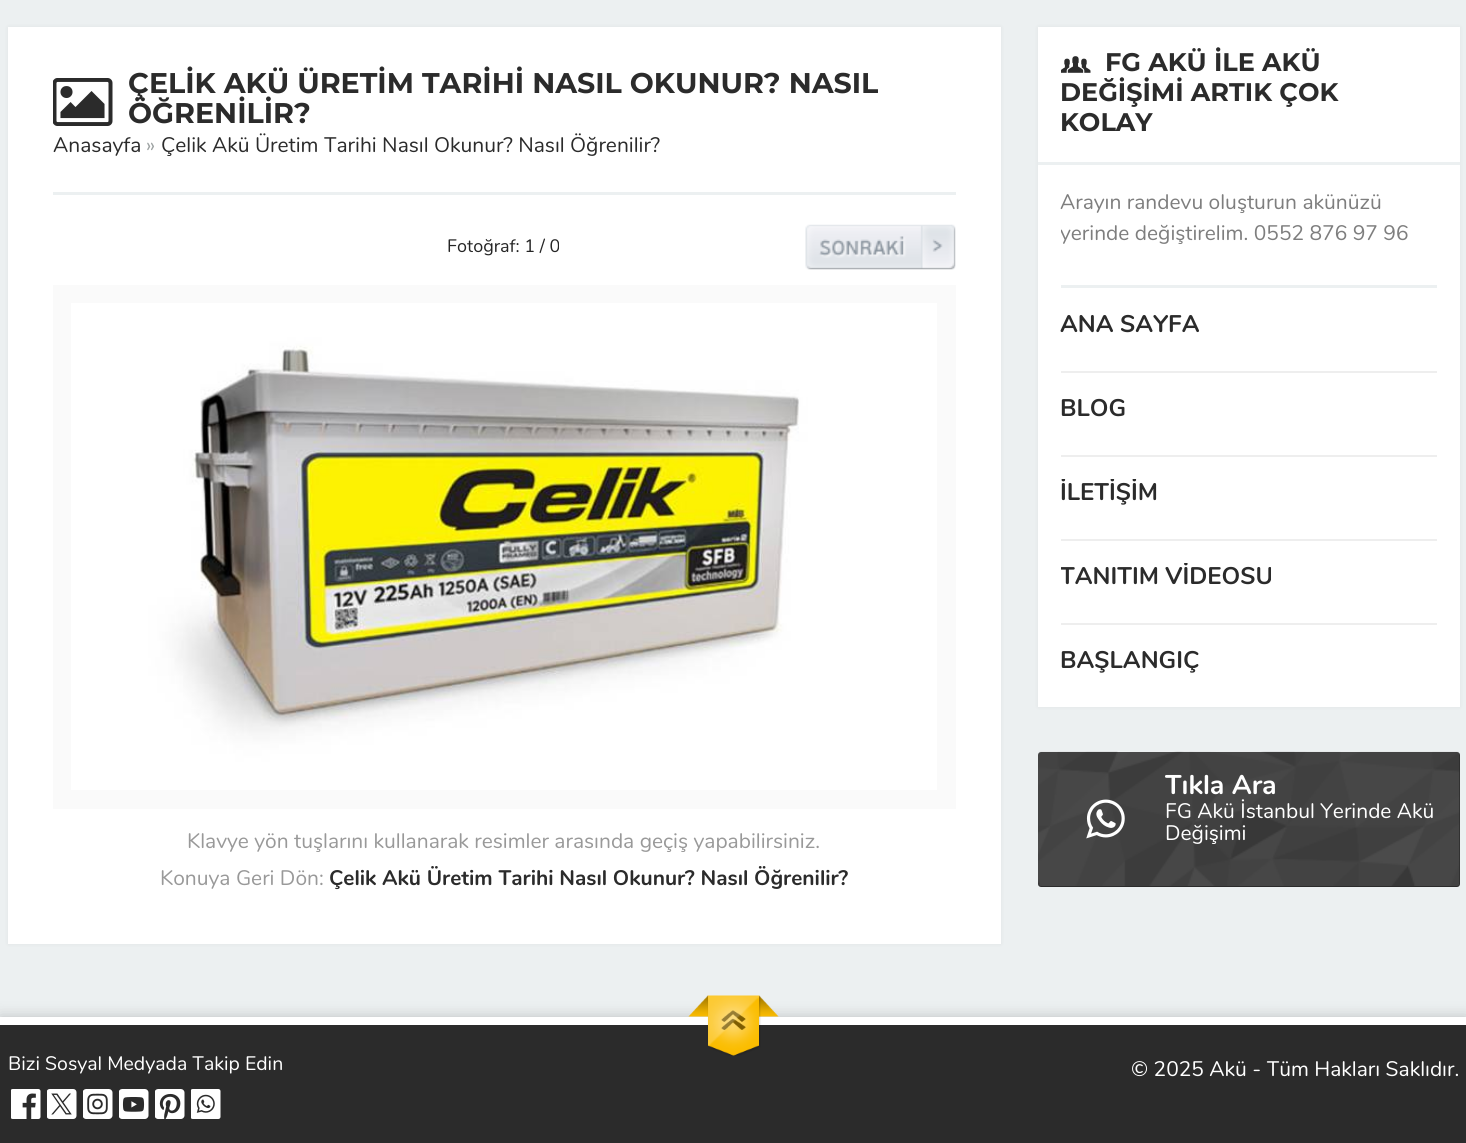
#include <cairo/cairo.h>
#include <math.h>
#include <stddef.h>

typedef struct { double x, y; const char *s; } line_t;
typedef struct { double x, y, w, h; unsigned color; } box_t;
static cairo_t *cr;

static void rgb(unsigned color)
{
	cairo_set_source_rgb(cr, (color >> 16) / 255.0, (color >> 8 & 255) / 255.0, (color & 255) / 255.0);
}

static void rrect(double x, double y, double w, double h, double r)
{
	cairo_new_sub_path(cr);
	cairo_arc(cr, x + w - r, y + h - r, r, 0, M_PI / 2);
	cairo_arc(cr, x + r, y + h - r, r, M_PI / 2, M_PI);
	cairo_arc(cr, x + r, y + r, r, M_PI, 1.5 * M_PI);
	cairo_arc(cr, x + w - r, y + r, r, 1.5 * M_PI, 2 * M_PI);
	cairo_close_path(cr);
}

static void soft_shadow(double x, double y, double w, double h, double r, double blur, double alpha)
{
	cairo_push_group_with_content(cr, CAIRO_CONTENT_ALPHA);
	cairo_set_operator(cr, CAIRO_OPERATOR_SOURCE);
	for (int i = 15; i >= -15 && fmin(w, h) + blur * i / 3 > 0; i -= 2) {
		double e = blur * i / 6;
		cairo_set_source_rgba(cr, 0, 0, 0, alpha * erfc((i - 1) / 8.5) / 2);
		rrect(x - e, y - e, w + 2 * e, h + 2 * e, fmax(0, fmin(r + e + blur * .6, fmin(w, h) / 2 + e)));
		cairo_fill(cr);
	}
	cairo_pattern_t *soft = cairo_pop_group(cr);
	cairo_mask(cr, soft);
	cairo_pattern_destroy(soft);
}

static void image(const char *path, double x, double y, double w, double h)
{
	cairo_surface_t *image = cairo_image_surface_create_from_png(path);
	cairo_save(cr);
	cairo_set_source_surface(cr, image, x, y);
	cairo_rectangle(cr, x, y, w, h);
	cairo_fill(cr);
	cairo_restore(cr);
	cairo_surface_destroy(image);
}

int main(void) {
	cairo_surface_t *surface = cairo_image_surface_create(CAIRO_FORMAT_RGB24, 1466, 1143);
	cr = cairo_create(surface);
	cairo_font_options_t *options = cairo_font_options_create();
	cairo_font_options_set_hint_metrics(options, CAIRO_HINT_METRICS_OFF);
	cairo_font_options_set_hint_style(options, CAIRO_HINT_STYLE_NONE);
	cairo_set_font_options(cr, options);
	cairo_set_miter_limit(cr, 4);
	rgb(0xecf0f1);
	cairo_paint(cr);
	rgb(0x000000);
	soft_shadow(8, 27, 993, 917, 0, 2, 0.06);
	rgb(0xffffff);
	cairo_rectangle(cr, 8, 27, 993, 917);
	cairo_fill(cr);
	rgb(0xecf0f1);
	cairo_rectangle(cr, 53, 192, 903, 3);
	cairo_fill(cr);
	image("img/1.png", 53, 78, 60, 48);
	image("img/2.png", 805, 224, 151, 46);
	rgb(0xfafafa);
	cairo_rectangle(cr, 53, 285, 903, 524);
	cairo_fill(cr);
	image("img/3.png", 71, 303, 866, 487);
	rgb(0x000000);
	soft_shadow(1038, 27, 422, 680, 0, 2, 0.06);
	rgb(0xffffff);
	cairo_rectangle(cr, 1038, 27, 422, 680);
	cairo_fill(cr);
	rgb(0xecf0f1);
	cairo_rectangle(cr, 1038, 162, 422, 3);
	cairo_fill(cr);
	image("img/4.png", 1061, 56, 30, 17);
	{
		static const box_t items[] = {
			{1061, 285, 376, 3, 0xecf0f1},
			{1061, 371, 376, 2, 0xeeeeee},
			{1061, 455, 376, 2, 0xeeeeee},
			{1061, 539, 376, 2, 0xeeeeee},
			{1061, 623, 376, 2, 0xeeeeee},
		};
		for (size_t i = 0; i < sizeof items / sizeof *items; i++) {
			rgb(items[i].color);
			cairo_rectangle(cr, items[i].x, items[i].y, items[i].w, items[i].h);
			cairo_fill(cr);
		}
	}
	rgb(0x2b2b2b);
	rrect(1038, 752, 422, 135, 3);
	cairo_fill(cr);
	image("img/5.png", 1038, 751, 422, 135);
	image("img/6.png", 1086, 799, 39, 40);
	rgb(0x000000);
	soft_shadow(0, 1017, 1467, 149, 0, 7.5, 0.2);
	rgb(0x2b2b2b);
	cairo_rectangle(cr, 0, 1025, 1466, 118);
	cairo_fill(cr);
	rgb(0xffffff);
	cairo_rectangle(cr, 0, 1017, 1466, 8);
	cairo_fill(cr);
	image("img/7.png", 688, 995, 91, 61);
	image("img/8.png", 11, 1089, 30, 30);
	image("img/9.png", 47, 1089, 30, 30);
	image("img/10.png", 83, 1089, 30, 30);
	image("img/11.png", 119, 1089, 30, 30);
	image("img/12.png", 155, 1089, 30, 30);
	image("img/13.png", 191, 1089, 30, 30);
	cairo_select_font_face(cr, "Montserrat", CAIRO_FONT_SLANT_NORMAL, CAIRO_FONT_WEIGHT_BOLD);
	cairo_set_font_size(cr, 28.5);
	rgb(0x2b2b2b);
	cairo_move_to(cr, 128, 93);
	cairo_show_text(cr, "ÇELİK AKÜ ÜRETİM TARİHİ NASIL OKUNUR? NASIL");
	cairo_move_to(cr, 128, 123);
	cairo_show_text(cr, "ÖĞRENİLİR?");
	cairo_select_font_face(cr, "Nunito", CAIRO_FONT_SLANT_NORMAL, CAIRO_FONT_WEIGHT_NORMAL);
	cairo_set_font_size(cr, 21);
	cairo_move_to(cr, 53, 152);
	cairo_show_text(cr, "Anasayfa");
	rgb(0x9fa4a4);
	cairo_move_to(cr, 146, 152);
	cairo_show_text(cr, "»");
	rgb(0x2b2b2b);
	cairo_move_to(cr, 161, 152);
	cairo_show_text(cr, "Çelik Akü Üretim Tarihi Nasıl Okunur? Nasıl Öğrenilir?");
	cairo_set_font_size(cr, 18);
	rgb(0x252525);
	cairo_move_to(cr, 447, 252);
	cairo_show_text(cr, "Fotoğraf: 1 / 0");
	cairo_set_font_size(cr, 21);
	rgb(0x999999);
	cairo_move_to(cr, 187, 848);
	cairo_show_text(cr, "Klavye yön tuşlarını kullanarak resimler arasında geçiş yapabilirsiniz.");
	cairo_move_to(cr, 160, 885);
	cairo_show_text(cr, "Konuya Geri Dön:");
	cairo_select_font_face(cr, "Nunito", CAIRO_FONT_SLANT_NORMAL, CAIRO_FONT_WEIGHT_BOLD);
	rgb(0x2b2b2b);
	cairo_move_to(cr, 329, 885);
	cairo_show_text(cr, "Çelik Akü Üretim Tarihi Nasıl Okunur? Nasıl Öğrenilir?");
	cairo_select_font_face(cr, "Montserrat", CAIRO_FONT_SLANT_NORMAL, CAIRO_FONT_WEIGHT_BOLD);
	cairo_set_font_size(cr, 25.5);
	{
		static const line_t items[] = {
			{1105, 71, "FG AKÜ İLE AKÜ"},
			{1060, 101, "DEĞİŞİMİ ARTIK ÇOK"},
			{1060, 131, "KOLAY"},
		};
		for (size_t i = 0; i < sizeof items / sizeof *items; i++) {
			cairo_move_to(cr, items[i].x, items[i].y);
			cairo_show_text(cr, items[i].s);
		}
	}
	cairo_select_font_face(cr, "Nunito", CAIRO_FONT_SLANT_NORMAL, CAIRO_FONT_WEIGHT_NORMAL);
	cairo_set_font_size(cr, 21);
	rgb(0x7e7e7e);
	cairo_move_to(cr, 1060, 209);
	cairo_show_text(cr, "Arayın randevu oluşturun akünüzü");
	cairo_save(cr);
	cairo_rectangle(cr, 1061, 188, 376, 496);
	cairo_clip(cr);
	cairo_move_to(cr, 1060, 240);
	cairo_show_text(cr, "yerinde değiştirelim. 0552 876 97 96");
	cairo_restore(cr);
	cairo_select_font_face(cr, "Nunito", CAIRO_FONT_SLANT_NORMAL, CAIRO_FONT_WEIGHT_BOLD);
	cairo_set_font_size(cr, 24);
	rgb(0x2b2b2b);
	cairo_move_to(cr, 1060, 332);
	cairo_show_text(cr, "ANA SAYFA");
	cairo_move_to(cr, 1060, 416);
	cairo_show_text(cr, "BLOG");
	cairo_save(cr);
	cairo_rectangle(cr, 1061, 479, 376, 37);
	cairo_clip(cr);
	cairo_move_to(cr, 1060, 500);
	cairo_show_text(cr, "İLETİŞİM");
	cairo_restore(cr);
	cairo_save(cr);
	cairo_rectangle(cr, 1061, 563, 376, 37);
	cairo_clip(cr);
	cairo_move_to(cr, 1060, 584);
	cairo_show_text(cr, "TANITIM VİDEOSU");
	cairo_restore(cr);
	cairo_move_to(cr, 1060, 668);
	cairo_show_text(cr, "BAŞLANGIÇ");
	cairo_set_font_size(cr, 27);
	rgb(0xffffff);
	cairo_move_to(cr, 1165, 794);
	cairo_show_text(cr, "Tıkla Ara");
	cairo_select_font_face(cr, "Nunito", CAIRO_FONT_SLANT_NORMAL, CAIRO_FONT_WEIGHT_NORMAL);
	cairo_set_font_size(cr, 21);
	cairo_move_to(cr, 1165, 818);
	cairo_show_text(cr, "FG Akü İstanbul Yerinde Akü");
	cairo_move_to(cr, 1165, 840);
	cairo_show_text(cr, "Değişimi");
	cairo_set_font_size(cr, 19.5);
	cairo_move_to(cr, 8, 1070);
	cairo_show_text(cr, "Bizi Sosyal Medyada Takip Edin");
	cairo_set_font_size(cr, 21);
	cairo_move_to(cr, 1131, 1076);
	cairo_show_text(cr, "© 2025 Akü - Tüm Hakları Saklıdır.");
	cairo_surface_write_to_png(surface, "page.png");
	cairo_font_options_destroy(options);
	cairo_destroy(cr);
	cairo_surface_destroy(surface);
	return 0;
}
